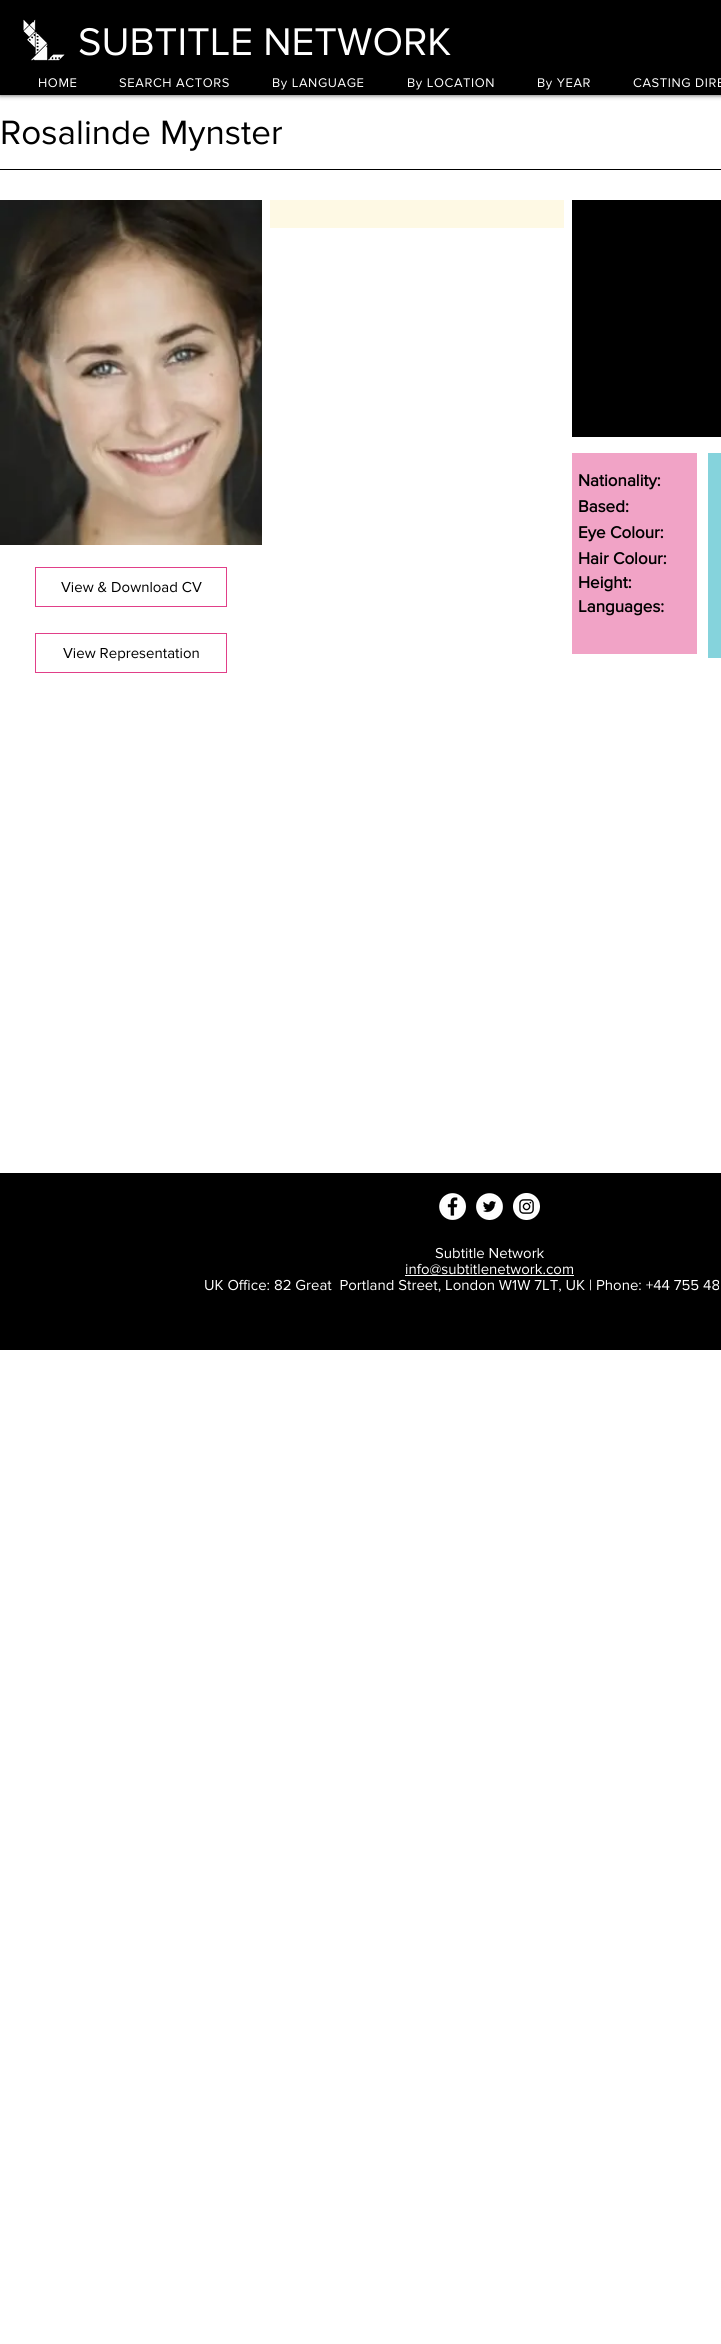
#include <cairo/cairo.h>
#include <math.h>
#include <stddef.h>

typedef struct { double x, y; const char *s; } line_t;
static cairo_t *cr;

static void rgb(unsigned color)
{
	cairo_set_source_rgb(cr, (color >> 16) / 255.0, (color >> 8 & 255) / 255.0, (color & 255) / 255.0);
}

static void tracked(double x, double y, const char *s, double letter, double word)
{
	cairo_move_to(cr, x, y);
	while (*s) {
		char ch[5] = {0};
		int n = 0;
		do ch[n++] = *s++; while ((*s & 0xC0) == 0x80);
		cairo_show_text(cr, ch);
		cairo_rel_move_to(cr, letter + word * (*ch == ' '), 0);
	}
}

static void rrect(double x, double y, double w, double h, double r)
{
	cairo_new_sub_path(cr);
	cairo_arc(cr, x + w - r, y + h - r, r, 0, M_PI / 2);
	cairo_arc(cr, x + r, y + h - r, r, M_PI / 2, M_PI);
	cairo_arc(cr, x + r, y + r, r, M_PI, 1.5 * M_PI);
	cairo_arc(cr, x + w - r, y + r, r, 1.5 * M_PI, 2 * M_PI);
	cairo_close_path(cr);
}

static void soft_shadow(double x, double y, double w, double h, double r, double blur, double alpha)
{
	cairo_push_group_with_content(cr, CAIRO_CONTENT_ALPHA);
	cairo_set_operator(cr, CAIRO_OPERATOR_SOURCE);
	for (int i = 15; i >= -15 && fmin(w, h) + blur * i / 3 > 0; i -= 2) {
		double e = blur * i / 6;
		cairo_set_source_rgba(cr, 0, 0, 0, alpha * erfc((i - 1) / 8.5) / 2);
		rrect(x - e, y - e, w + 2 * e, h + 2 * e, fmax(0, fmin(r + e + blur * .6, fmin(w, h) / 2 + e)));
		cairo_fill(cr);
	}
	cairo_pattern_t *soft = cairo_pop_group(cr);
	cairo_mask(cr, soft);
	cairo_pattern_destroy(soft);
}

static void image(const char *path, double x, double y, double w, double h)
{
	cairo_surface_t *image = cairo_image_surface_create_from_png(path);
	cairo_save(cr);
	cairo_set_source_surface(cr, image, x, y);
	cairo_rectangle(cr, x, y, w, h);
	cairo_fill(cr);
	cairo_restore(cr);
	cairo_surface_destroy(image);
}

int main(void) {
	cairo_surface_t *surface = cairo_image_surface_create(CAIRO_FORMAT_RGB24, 721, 2344);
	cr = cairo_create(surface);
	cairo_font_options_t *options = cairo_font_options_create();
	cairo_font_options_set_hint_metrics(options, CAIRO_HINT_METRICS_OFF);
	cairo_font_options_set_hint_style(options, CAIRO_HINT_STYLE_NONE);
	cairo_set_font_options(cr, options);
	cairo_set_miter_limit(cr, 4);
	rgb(0xffffff);
	cairo_paint(cr);
	rgb(0x000000);
	soft_shadow(0, 0, 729, 95, 0, 2.5, 0.7);
	rgb(0x000000);
	cairo_rectangle(cr, 0, 0, 721, 95);
	cairo_fill(cr);
	image("img/1.png", 23, 19, 42, 42);
	cairo_rectangle(cr, 0, 169, 721, 1);
	cairo_fill(cr);
	image("img/2.png", 0, 200, 262, 345);
	rgb(0xfef9e4);
	cairo_rectangle(cr, 270, 200, 294, 28);
	cairo_fill(cr);
	rgb(0x000000);
	cairo_rectangle(cr, 572, 200, 149, 237);
	cairo_fill(cr);
	cairo_rectangle(cr, 35.5, 567.5, 191, 39);
	rgb(0xe13f89);
	cairo_set_line_width(cr, 1);
	cairo_stroke(cr);
	rgb(0xf1a3c6);
	cairo_rectangle(cr, 572, 453, 125, 201);
	cairo_fill(cr);
	rgb(0x85d3dc);
	cairo_rectangle(cr, 708, 453, 13, 205);
	cairo_fill(cr);
	cairo_rectangle(cr, 35.5, 633.5, 191, 39);
	rgb(0xe13f89);
	cairo_stroke(cr);
	rgb(0x000000);
	cairo_rectangle(cr, 0, 1173, 721, 177);
	cairo_fill(cr);
	image("img/3.png", 439, 1193, 27, 27);
	image("img/4.png", 476, 1193, 27, 27);
	image("img/5.png", 513, 1193, 27, 27);
	rgb(0xffffff);
	cairo_rectangle(cr, 405, 1275, 169, 1);
	cairo_fill(cr);
	cairo_select_font_face(cr, "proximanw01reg", CAIRO_FONT_SLANT_NORMAL, CAIRO_FONT_WEIGHT_NORMAL);
	cairo_set_font_size(cr, 40);
	cairo_move_to(cr, 78, 55);
	cairo_show_text(cr, "SUBTITLE NETWORK");
	cairo_set_font_size(cr, 13);
	tracked(38, 87, "HOME", 0.6, 0);
	rgb(0x000000);
	cairo_new_path(cr);
	cairo_move_to(cr, 32, 83);
	cairo_line_to(cr, 40.5, 73);
	cairo_line_to(cr, 42, 74);
	cairo_line_to(cr, 34, 83);
	cairo_line_to(cr, 42, 92);
	cairo_line_to(cr, 40.5, 93);
	cairo_close_path(cr);
	cairo_fill(cr);
	rgb(0xffffff);
	{
		static const line_t items[] = {
			{119, 87, "SEARCH ACTORS"},
			{272, 87, "By LANGUAGE"},
			{407, 87, "By LOCATION"},
			{537, 87, "By YEAR"},
			{633, 87, "CASTING DIRE"},
		};
		for (size_t i = 0; i < sizeof items / sizeof *items; i++) {
			tracked(items[i].x, items[i].y, items[i].s, 0.6, 0);
		}
	}
	cairo_set_font_size(cr, 35);
	rgb(0x000000);
	cairo_move_to(cr, 0, 144);
	cairo_show_text(cr, "Rosalinde Mynster");
	cairo_set_font_size(cr, 15);
	cairo_move_to(cr, 61, 592);
	cairo_show_text(cr, "View & Download CV");
	cairo_select_font_face(cr, "proximanw01reg", CAIRO_FONT_SLANT_NORMAL, CAIRO_FONT_WEIGHT_BOLD);
	cairo_set_font_size(cr, 17);
	{
		static const line_t items[] = {
			{578, 486, "Nationality:"},
			{578, 512, "Based:"},
			{578, 538, "Eye Colour:"},
			{578, 564, "Hair Colour:"},
			{578, 588, "Height:"},
			{578, 612, "Languages:"},
		};
		for (size_t i = 0; i < sizeof items / sizeof *items; i++) {
			cairo_move_to(cr, items[i].x, items[i].y);
			cairo_show_text(cr, items[i].s);
		}
	}
	cairo_select_font_face(cr, "proximanw01reg", CAIRO_FONT_SLANT_NORMAL, CAIRO_FONT_WEIGHT_NORMAL);
	cairo_set_font_size(cr, 15);
	cairo_move_to(cr, 63, 658);
	cairo_show_text(cr, "View Representation");
	rgb(0xffffff);
	{
		static const line_t items[] = {
			{435, 1258, "Subtitle Network"},
			{405, 1274, "info@subtitlenetwork.com"},
			{204, 1290, "UK Office: 82 Great  Portland Street, London W1W 7LT, UK | Phone: +44 755 48"},
		};
		for (size_t i = 0; i < sizeof items / sizeof *items; i++) {
			cairo_move_to(cr, items[i].x, items[i].y);
			cairo_show_text(cr, items[i].s);
		}
	}
	cairo_surface_write_to_png(surface, "page.png");
	cairo_font_options_destroy(options);
	cairo_destroy(cr);
	cairo_surface_destroy(surface);
	return 0;
}
